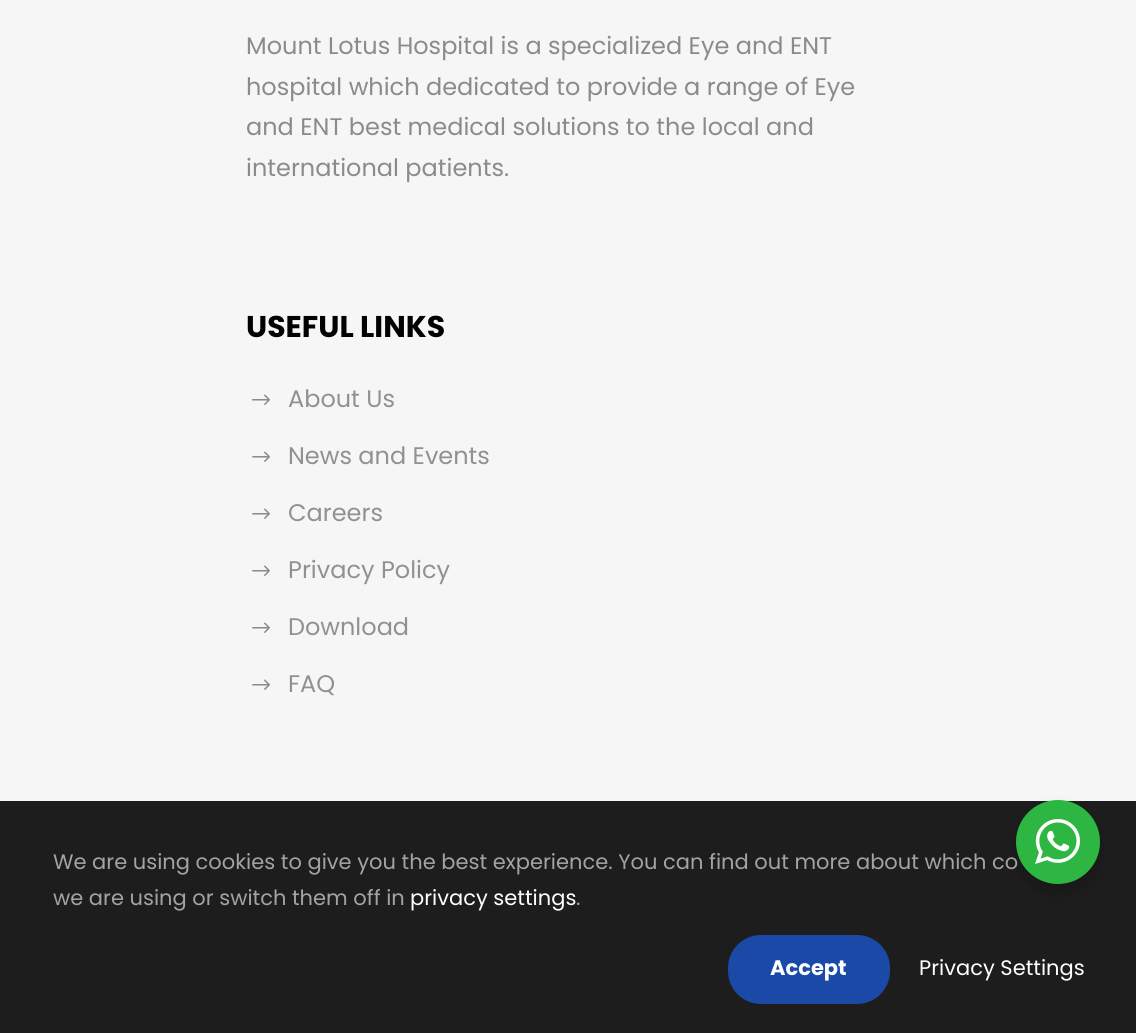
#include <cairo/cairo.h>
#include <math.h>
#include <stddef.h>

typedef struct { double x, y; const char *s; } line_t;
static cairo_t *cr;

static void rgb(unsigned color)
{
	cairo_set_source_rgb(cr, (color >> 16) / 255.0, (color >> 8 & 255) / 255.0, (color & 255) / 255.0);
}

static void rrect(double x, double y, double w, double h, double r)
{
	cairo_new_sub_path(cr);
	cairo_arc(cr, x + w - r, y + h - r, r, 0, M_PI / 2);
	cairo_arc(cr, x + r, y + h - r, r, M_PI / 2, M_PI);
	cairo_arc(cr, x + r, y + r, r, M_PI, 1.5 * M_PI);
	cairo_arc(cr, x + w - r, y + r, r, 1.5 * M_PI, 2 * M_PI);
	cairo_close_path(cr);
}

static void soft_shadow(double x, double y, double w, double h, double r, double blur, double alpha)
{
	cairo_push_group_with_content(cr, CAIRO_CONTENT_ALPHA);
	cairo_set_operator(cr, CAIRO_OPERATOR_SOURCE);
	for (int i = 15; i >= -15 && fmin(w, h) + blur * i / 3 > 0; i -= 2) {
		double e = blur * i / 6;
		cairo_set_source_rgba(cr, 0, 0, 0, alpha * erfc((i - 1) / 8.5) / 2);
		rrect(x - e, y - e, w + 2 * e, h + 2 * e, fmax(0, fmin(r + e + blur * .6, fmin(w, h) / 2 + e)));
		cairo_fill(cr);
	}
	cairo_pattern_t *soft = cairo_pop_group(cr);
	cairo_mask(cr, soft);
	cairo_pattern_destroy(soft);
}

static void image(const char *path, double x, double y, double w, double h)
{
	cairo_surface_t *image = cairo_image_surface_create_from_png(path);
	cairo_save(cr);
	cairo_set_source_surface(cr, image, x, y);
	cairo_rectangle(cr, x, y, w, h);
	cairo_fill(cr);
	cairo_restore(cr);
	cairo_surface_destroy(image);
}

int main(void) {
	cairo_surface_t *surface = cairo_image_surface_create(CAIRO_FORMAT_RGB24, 1136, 1033);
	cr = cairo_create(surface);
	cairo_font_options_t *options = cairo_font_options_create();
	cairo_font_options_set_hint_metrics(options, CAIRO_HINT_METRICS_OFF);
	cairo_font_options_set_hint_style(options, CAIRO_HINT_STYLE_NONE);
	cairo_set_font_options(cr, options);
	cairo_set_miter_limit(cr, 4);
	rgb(0xf6f6f6);
	cairo_paint(cr);
	image("img/1.png", 252, 394, 18, 11);
	image("img/1.png", 252, 451, 18, 11);
	image("img/1.png", 252, 508, 18, 11);
	image("img/1.png", 252, 565, 18, 11);
	image("img/1.png", 252, 622, 18, 11);
	image("img/1.png", 252, 679, 18, 11);
	rgb(0x1d1d1d);
	cairo_rectangle(cr, 0, 801, 1136, 232);
	cairo_fill(cr);
	rgb(0x000000);
	soft_shadow(1013, 806, 90, 90, 45, 6, 0.14);
	rgb(0x1a49a8);
	rrect(728, 935, 162, 69, 33);
	cairo_fill(cr);
	cairo_select_font_face(cr, "Poppins", CAIRO_FONT_SLANT_NORMAL, CAIRO_FONT_WEIGHT_NORMAL);
	cairo_set_font_size(cr, 24);
	rgb(0x8b8b8b);
	{
		static const line_t items[] = {
			{246, 54, "Mount Lotus Hospital is a specialized Eye and ENT"},
			{246, 95, "hospital which dedicated to provide a range of Eye"},
			{246, 135, "and ENT best medical solutions to the local and"},
			{246, 176, "international patients."},
		};
		for (size_t i = 0; i < sizeof items / sizeof *items; i++) {
			cairo_move_to(cr, items[i].x, items[i].y);
			cairo_show_text(cr, items[i].s);
		}
	}
	cairo_select_font_face(cr, "Poppins", CAIRO_FONT_SLANT_NORMAL, CAIRO_FONT_WEIGHT_BOLD);
	cairo_set_font_size(cr, 30);
	rgb(0x020202);
	cairo_move_to(cr, 246, 337);
	cairo_show_text(cr, "USEFUL LINKS");
	cairo_select_font_face(cr, "Poppins", CAIRO_FONT_SLANT_NORMAL, CAIRO_FONT_WEIGHT_NORMAL);
	cairo_set_font_size(cr, 24);
	rgb(0x919191);
	{
		static const line_t items[] = {
			{288, 407, "About Us"},
			{288, 464, "News and Events"},
			{288, 521, "Careers"},
			{288, 578, "Privacy Policy"},
			{288, 635, "Download"},
			{288, 692, "FAQ"},
		};
		for (size_t i = 0; i < sizeof items / sizeof *items; i++) {
			cairo_move_to(cr, items[i].x, items[i].y);
			cairo_show_text(cr, items[i].s);
		}
	}
	cairo_set_font_size(cr, 21);
	rgb(0xa3a3a3);
	cairo_move_to(cr, 53, 869);
	cairo_show_text(cr, "We are using cookies to give you the best experience. You can find out more about which co");
	rgb(0x2db742);
	cairo_new_path(cr);
	cairo_arc(cr, 1058, 842, 42, 0, 2 * M_PI);
	cairo_fill(cr);
	image("img/2.png", 1035, 819, 45, 45);
	rgb(0xa3a3a3);
	cairo_move_to(cr, 53, 905);
	cairo_show_text(cr, "we are using or switch them off in");
	rgb(0xffffff);
	cairo_move_to(cr, 410, 905);
	cairo_show_text(cr, "privacy settings");
	rgb(0xa3a3a3);
	cairo_move_to(cr, 576, 905);
	cairo_show_text(cr, ".");
	cairo_select_font_face(cr, "Poppins", CAIRO_FONT_SLANT_NORMAL, CAIRO_FONT_WEIGHT_BOLD);
	rgb(0xffffff);
	cairo_move_to(cr, 770, 975);
	cairo_show_text(cr, "Accept");
	cairo_select_font_face(cr, "Poppins", CAIRO_FONT_SLANT_NORMAL, CAIRO_FONT_WEIGHT_NORMAL);
	cairo_move_to(cr, 919, 975);
	cairo_show_text(cr, "Privacy Settings");
	cairo_surface_write_to_png(surface, "page.png");
	cairo_font_options_destroy(options);
	cairo_destroy(cr);
	cairo_surface_destroy(surface);
	return 0;
}
